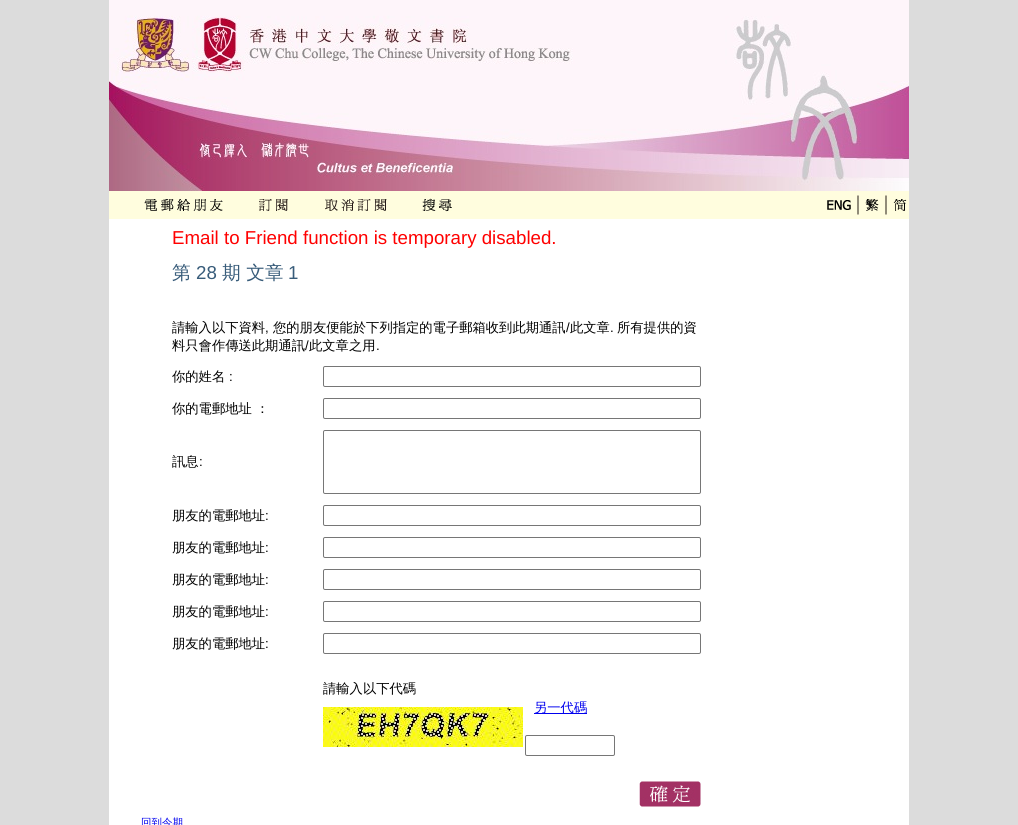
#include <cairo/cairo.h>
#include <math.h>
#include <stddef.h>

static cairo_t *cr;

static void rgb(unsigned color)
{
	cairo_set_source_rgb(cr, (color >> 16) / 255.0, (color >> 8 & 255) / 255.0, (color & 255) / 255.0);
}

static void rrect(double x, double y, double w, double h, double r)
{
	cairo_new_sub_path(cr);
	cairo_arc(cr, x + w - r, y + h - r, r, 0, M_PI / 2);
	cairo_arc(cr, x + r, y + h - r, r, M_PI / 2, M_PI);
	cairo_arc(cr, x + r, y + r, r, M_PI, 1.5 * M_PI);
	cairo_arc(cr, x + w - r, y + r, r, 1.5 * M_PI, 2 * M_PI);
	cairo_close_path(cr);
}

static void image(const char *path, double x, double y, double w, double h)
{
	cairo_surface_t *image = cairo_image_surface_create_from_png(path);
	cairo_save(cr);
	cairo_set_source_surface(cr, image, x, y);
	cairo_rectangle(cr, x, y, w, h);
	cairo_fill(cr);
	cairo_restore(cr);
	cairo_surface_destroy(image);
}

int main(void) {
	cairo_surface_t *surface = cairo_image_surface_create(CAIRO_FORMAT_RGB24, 1018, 825);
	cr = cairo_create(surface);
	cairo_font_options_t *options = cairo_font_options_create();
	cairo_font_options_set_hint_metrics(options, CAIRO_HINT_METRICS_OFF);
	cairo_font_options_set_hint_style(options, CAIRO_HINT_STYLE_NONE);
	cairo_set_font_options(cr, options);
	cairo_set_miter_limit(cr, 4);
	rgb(0xdcdcdc);
	cairo_paint(cr);
	rgb(0xffffff);
	cairo_rectangle(cr, 109, 219, 800, 606);
	cairo_fill(cr);
	image("img/1.png", 109, 0, 83, 81);
	image("img/2.png", 192, 0, 53, 81);
	image("img/3.png", 245, 0, 664, 81);
	image("img/4.png", 109, 81, 800, 110);
	rgb(0xfffdde);
	cairo_rectangle(cr, 109, 191, 800, 28);
	cairo_fill(cr);
	image("img/5.png", 144, 199, 79, 16);
	image("img/6.png", 259, 199, 29, 15);
	image("img/7.png", 325, 199, 62, 15);
	image("img/8.png", 422, 198, 30, 14);
	image("img/9.png", 827, 200, 24, 11);
	image("img/10.png", 857, 195, 2, 20);
	image("img/11.png", 865, 199, 14, 12);
	image("img/10.png", 885, 195, 2, 20);
	image("img/12.png", 892, 199, 15, 12);
	rrect(323.5, 366.5, 377, 20, 1.5);
	rgb(0x767676);
	cairo_set_line_width(cr, 1);
	cairo_stroke(cr);
	rrect(323.5, 398.5, 377, 20, 1.5);
	cairo_stroke(cr);
	rrect(323.5, 430.5, 377, 63, 1.5);
	cairo_stroke(cr);
	rrect(323.5, 505.5, 377, 20, 1.5);
	cairo_stroke(cr);
	rrect(323.5, 537.5, 377, 20, 1.5);
	cairo_stroke(cr);
	rrect(323.5, 569.5, 377, 20, 1.5);
	cairo_stroke(cr);
	rrect(323.5, 601.5, 377, 20, 1.5);
	cairo_stroke(cr);
	rrect(323.5, 633.5, 377, 20, 1.5);
	cairo_stroke(cr);
	image("img/13.png", 323, 707, 200, 40);
	rgb(0x0000ee);
	cairo_rectangle(cr, 534, 713, 53, 1);
	cairo_fill(cr);
	rrect(525.5, 735.5, 89, 20, 1.5);
	rgb(0x767676);
	cairo_stroke(cr);
	image("img/14.png", 639, 781, 62, 26);
	cairo_select_font_face(cr, "Liberation Sans", CAIRO_FONT_SLANT_NORMAL, CAIRO_FONT_WEIGHT_NORMAL);
	cairo_set_font_size(cr, 18.7);
	rgb(0xff0000);
	cairo_move_to(cr, 172, 244);
	cairo_show_text(cr, "Email to Friend function is temporary disabled.");
	cairo_select_font_face(cr, "WenQuanYi Zen Hei Medium", CAIRO_FONT_SLANT_NORMAL, CAIRO_FONT_WEIGHT_NORMAL);
	rgb(0x385c7a);
	cairo_move_to(cr, 172, 279);
	cairo_show_text(cr, "第");
	cairo_select_font_face(cr, "Liberation Sans", CAIRO_FONT_SLANT_NORMAL, CAIRO_FONT_WEIGHT_NORMAL);
	cairo_move_to(cr, 196, 279);
	cairo_show_text(cr, "28");
	cairo_select_font_face(cr, "WenQuanYi Zen Hei Medium", CAIRO_FONT_SLANT_NORMAL, CAIRO_FONT_WEIGHT_NORMAL);
	cairo_move_to(cr, 222, 279);
	cairo_show_text(cr, "期 文章");
	cairo_select_font_face(cr, "Liberation Sans", CAIRO_FONT_SLANT_NORMAL, CAIRO_FONT_WEIGHT_NORMAL);
	cairo_move_to(cr, 288, 279);
	cairo_show_text(cr, "1");
	cairo_select_font_face(cr, "WenQuanYi Zen Hei Medium", CAIRO_FONT_SLANT_NORMAL, CAIRO_FONT_WEIGHT_NORMAL);
	cairo_set_font_size(cr, 13.3);
	rgb(0x000000);
	cairo_move_to(cr, 172, 332);
	cairo_show_text(cr, "請輸入以下資料");
	cairo_select_font_face(cr, "Liberation Sans", CAIRO_FONT_SLANT_NORMAL, CAIRO_FONT_WEIGHT_NORMAL);
	cairo_move_to(cr, 265, 332);
	cairo_show_text(cr, ",");
	cairo_select_font_face(cr, "WenQuanYi Zen Hei Medium", CAIRO_FONT_SLANT_NORMAL, CAIRO_FONT_WEIGHT_NORMAL);
	cairo_move_to(cr, 273, 332);
	cairo_show_text(cr, "您的朋友便能於下列指定的電子郵箱收到此期通訊");
	cairo_select_font_face(cr, "Liberation Sans", CAIRO_FONT_SLANT_NORMAL, CAIRO_FONT_WEIGHT_NORMAL);
	cairo_move_to(cr, 566, 332);
	cairo_show_text(cr, "/");
	cairo_select_font_face(cr, "WenQuanYi Zen Hei Medium", CAIRO_FONT_SLANT_NORMAL, CAIRO_FONT_WEIGHT_NORMAL);
	cairo_move_to(cr, 570, 332);
	cairo_show_text(cr, "此文章");
	cairo_select_font_face(cr, "Liberation Sans", CAIRO_FONT_SLANT_NORMAL, CAIRO_FONT_WEIGHT_NORMAL);
	cairo_move_to(cr, 610, 332);
	cairo_show_text(cr, ".");
	cairo_select_font_face(cr, "WenQuanYi Zen Hei Medium", CAIRO_FONT_SLANT_NORMAL, CAIRO_FONT_WEIGHT_NORMAL);
	cairo_move_to(cr, 617, 332);
	cairo_show_text(cr, "所有提供的資");
	cairo_move_to(cr, 172, 350);
	cairo_show_text(cr, "料只會作傳送此期通訊");
	cairo_select_font_face(cr, "Liberation Sans", CAIRO_FONT_SLANT_NORMAL, CAIRO_FONT_WEIGHT_NORMAL);
	cairo_move_to(cr, 305, 350);
	cairo_show_text(cr, "/");
	cairo_select_font_face(cr, "WenQuanYi Zen Hei Medium", CAIRO_FONT_SLANT_NORMAL, CAIRO_FONT_WEIGHT_NORMAL);
	cairo_move_to(cr, 309, 350);
	cairo_show_text(cr, "此文章之用");
	cairo_select_font_face(cr, "Liberation Sans", CAIRO_FONT_SLANT_NORMAL, CAIRO_FONT_WEIGHT_NORMAL);
	cairo_move_to(cr, 376, 350);
	cairo_show_text(cr, ".");
	cairo_select_font_face(cr, "WenQuanYi Zen Hei Medium", CAIRO_FONT_SLANT_NORMAL, CAIRO_FONT_WEIGHT_NORMAL);
	cairo_move_to(cr, 172, 381);
	cairo_show_text(cr, "你的姓名");
	cairo_select_font_face(cr, "Liberation Sans", CAIRO_FONT_SLANT_NORMAL, CAIRO_FONT_WEIGHT_NORMAL);
	cairo_move_to(cr, 229, 381);
	cairo_show_text(cr, ":");
	cairo_select_font_face(cr, "WenQuanYi Zen Hei Medium", CAIRO_FONT_SLANT_NORMAL, CAIRO_FONT_WEIGHT_NORMAL);
	cairo_move_to(cr, 172, 413);
	cairo_show_text(cr, "你的電郵地址 ：");
	cairo_move_to(cr, 172, 466);
	cairo_show_text(cr, "訊息");
	cairo_select_font_face(cr, "Liberation Sans", CAIRO_FONT_SLANT_NORMAL, CAIRO_FONT_WEIGHT_NORMAL);
	cairo_move_to(cr, 199, 466);
	cairo_show_text(cr, ":");
	cairo_select_font_face(cr, "WenQuanYi Zen Hei Medium", CAIRO_FONT_SLANT_NORMAL, CAIRO_FONT_WEIGHT_NORMAL);
	cairo_move_to(cr, 172, 520);
	cairo_show_text(cr, "朋友的電郵地址");
	cairo_select_font_face(cr, "Liberation Sans", CAIRO_FONT_SLANT_NORMAL, CAIRO_FONT_WEIGHT_NORMAL);
	cairo_move_to(cr, 265, 520);
	cairo_show_text(cr, ":");
	cairo_select_font_face(cr, "WenQuanYi Zen Hei Medium", CAIRO_FONT_SLANT_NORMAL, CAIRO_FONT_WEIGHT_NORMAL);
	cairo_move_to(cr, 172, 552);
	cairo_show_text(cr, "朋友的電郵地址");
	cairo_select_font_face(cr, "Liberation Sans", CAIRO_FONT_SLANT_NORMAL, CAIRO_FONT_WEIGHT_NORMAL);
	cairo_move_to(cr, 265, 552);
	cairo_show_text(cr, ":");
	cairo_select_font_face(cr, "WenQuanYi Zen Hei Medium", CAIRO_FONT_SLANT_NORMAL, CAIRO_FONT_WEIGHT_NORMAL);
	cairo_move_to(cr, 172, 584);
	cairo_show_text(cr, "朋友的電郵地址");
	cairo_select_font_face(cr, "Liberation Sans", CAIRO_FONT_SLANT_NORMAL, CAIRO_FONT_WEIGHT_NORMAL);
	cairo_move_to(cr, 265, 584);
	cairo_show_text(cr, ":");
	cairo_select_font_face(cr, "WenQuanYi Zen Hei Medium", CAIRO_FONT_SLANT_NORMAL, CAIRO_FONT_WEIGHT_NORMAL);
	cairo_move_to(cr, 172, 616);
	cairo_show_text(cr, "朋友的電郵地址");
	cairo_select_font_face(cr, "Liberation Sans", CAIRO_FONT_SLANT_NORMAL, CAIRO_FONT_WEIGHT_NORMAL);
	cairo_move_to(cr, 265, 616);
	cairo_show_text(cr, ":");
	cairo_select_font_face(cr, "WenQuanYi Zen Hei Medium", CAIRO_FONT_SLANT_NORMAL, CAIRO_FONT_WEIGHT_NORMAL);
	cairo_move_to(cr, 172, 648);
	cairo_show_text(cr, "朋友的電郵地址");
	cairo_select_font_face(cr, "Liberation Sans", CAIRO_FONT_SLANT_NORMAL, CAIRO_FONT_WEIGHT_NORMAL);
	cairo_move_to(cr, 265, 648);
	cairo_show_text(cr, ":");
	cairo_select_font_face(cr, "WenQuanYi Zen Hei Medium", CAIRO_FONT_SLANT_NORMAL, CAIRO_FONT_WEIGHT_NORMAL);
	cairo_move_to(cr, 323, 693);
	cairo_show_text(cr, "請輸入以下代碼");
	rgb(0x0000ee);
	cairo_move_to(cr, 534, 712);
	cairo_show_text(cr, "另一代碼");
	cairo_set_font_size(cr, 10.5);
	cairo_move_to(cr, 141, 826);
	cairo_show_text(cr, "回到今期");
	cairo_surface_write_to_png(surface, "page.png");
	cairo_font_options_destroy(options);
	cairo_destroy(cr);
	cairo_surface_destroy(surface);
	return 0;
}
